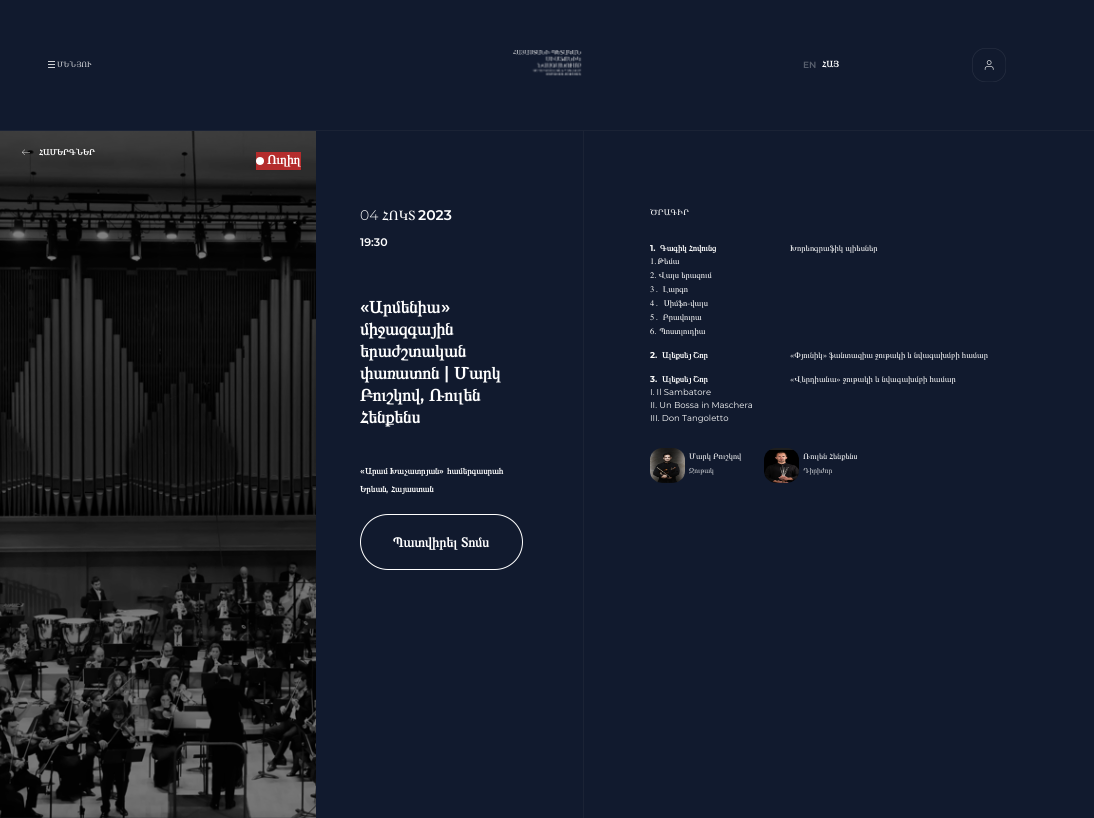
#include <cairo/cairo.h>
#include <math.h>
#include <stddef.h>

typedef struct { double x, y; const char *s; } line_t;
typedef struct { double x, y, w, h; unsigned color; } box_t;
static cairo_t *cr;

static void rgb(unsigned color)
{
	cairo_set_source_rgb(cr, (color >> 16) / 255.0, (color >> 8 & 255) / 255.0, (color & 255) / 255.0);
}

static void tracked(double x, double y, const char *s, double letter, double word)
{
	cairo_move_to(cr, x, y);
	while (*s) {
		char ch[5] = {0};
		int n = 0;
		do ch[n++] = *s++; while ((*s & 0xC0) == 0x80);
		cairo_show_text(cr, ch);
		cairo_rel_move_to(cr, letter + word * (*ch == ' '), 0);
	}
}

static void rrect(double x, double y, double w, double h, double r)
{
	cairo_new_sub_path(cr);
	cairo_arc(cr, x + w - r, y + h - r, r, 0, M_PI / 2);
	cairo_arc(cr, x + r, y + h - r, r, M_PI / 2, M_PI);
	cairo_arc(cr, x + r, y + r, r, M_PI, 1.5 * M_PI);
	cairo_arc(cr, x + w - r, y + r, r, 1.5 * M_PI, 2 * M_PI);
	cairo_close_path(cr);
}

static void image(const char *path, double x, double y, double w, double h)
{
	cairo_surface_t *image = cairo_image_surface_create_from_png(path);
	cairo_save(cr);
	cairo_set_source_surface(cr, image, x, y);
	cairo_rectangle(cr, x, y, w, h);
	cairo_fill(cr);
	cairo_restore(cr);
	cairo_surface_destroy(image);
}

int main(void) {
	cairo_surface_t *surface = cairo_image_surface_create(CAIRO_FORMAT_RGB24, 1094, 818);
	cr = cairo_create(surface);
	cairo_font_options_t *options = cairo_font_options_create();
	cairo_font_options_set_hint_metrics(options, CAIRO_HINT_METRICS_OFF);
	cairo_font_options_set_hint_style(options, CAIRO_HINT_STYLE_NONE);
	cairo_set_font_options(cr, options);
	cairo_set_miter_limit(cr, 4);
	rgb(0x111a2e);
	cairo_paint(cr);
	{
		static const box_t items[] = {
			{0, 130, 1094, 1, 0x1b2335},
			{48, 64, 7, 1, 0xcfd1d5},
			{48, 61, 7, 1, 0xcfd1d5},
			{48, 67, 7, 1, 0xcfd1d5},
		};
		for (size_t i = 0; i < sizeof items / sizeof *items; i++) {
			rgb(items[i].color);
			cairo_rectangle(cr, items[i].x, items[i].y, items[i].w, items[i].h);
			cairo_fill(cr);
		}
	}
	image("img/1.png", 513, 50, 69, 26);
	image("img/2.png", 972, 48, 34, 34);
	image("img/4.png", 0, 131, 316, 687);
	image("img/3.png", 22, 149, 8, 6);
	rgb(0xb42c2c);
	cairo_rectangle(cr, 256, 152, 45, 18);
	cairo_fill(cr);
	rgb(0xffffff);
	cairo_arc(cr, 260, 161, 4, 0, 2 * M_PI);
	cairo_fill(cr);
	rrect(360.5, 514.5, 162, 55, 27.5);
	cairo_set_line_width(cr, 1);
	cairo_stroke(cr);
	rgb(0x1b2335);
	cairo_rectangle(cr, 583, 131, 1, 687);
	cairo_fill(cr);
	image("img/5.png", 650, 448, 35, 35);
	image("img/6.png", 764, 448, 35, 35);
	cairo_select_font_face(cr, "FreeSerif", CAIRO_FONT_SLANT_NORMAL, CAIRO_FONT_WEIGHT_NORMAL);
	cairo_set_font_size(cr, 8);
	rgb(0xcfd1d5);
	cairo_move_to(cr, 57, 67);
	cairo_show_text(cr, "ՄԵՆՅՈՒ");
	cairo_select_font_face(cr, "Montserrat SemiBold", CAIRO_FONT_SLANT_NORMAL, CAIRO_FONT_WEIGHT_NORMAL);
	cairo_set_font_size(cr, 9);
	rgb(0x585f6d);
	cairo_move_to(cr, 803, 68);
	cairo_show_text(cr, "EN");
	cairo_select_font_face(cr, "FreeSerif", CAIRO_FONT_SLANT_NORMAL, CAIRO_FONT_WEIGHT_BOLD);
	rgb(0xffffff);
	cairo_move_to(cr, 822, 67);
	cairo_show_text(cr, "ՀԱՅ");
	cairo_set_font_size(cr, 8.5);
	cairo_move_to(cr, 39, 155);
	cairo_show_text(cr, "ՀԱՄԵՐԳՆԵՐ");
	cairo_set_font_size(cr, 13);
	cairo_move_to(cr, 267, 164);
	cairo_show_text(cr, "Ուղիղ");
	cairo_select_font_face(cr, "Montserrat Light", CAIRO_FONT_SLANT_NORMAL, CAIRO_FONT_WEIGHT_NORMAL);
	cairo_set_font_size(cr, 14);
	cairo_move_to(cr, 360, 220);
	cairo_show_text(cr, "04");
	cairo_select_font_face(cr, "FreeSerif", CAIRO_FONT_SLANT_NORMAL, CAIRO_FONT_WEIGHT_NORMAL);
	cairo_move_to(cr, 382, 220);
	cairo_show_text(cr, "ՀՈԿՏ");
	cairo_select_font_face(cr, "Montserrat SemiBold", CAIRO_FONT_SLANT_NORMAL, CAIRO_FONT_WEIGHT_NORMAL);
	cairo_move_to(cr, 418, 220);
	cairo_show_text(cr, "2023");
	cairo_set_font_size(cr, 11);
	cairo_move_to(cr, 360, 246);
	cairo_show_text(cr, "19:30");
	cairo_set_font_size(cr, 17.5);
	cairo_move_to(cr, 360, 313);
	cairo_show_text(cr, "«");
	cairo_select_font_face(cr, "FreeSerif", CAIRO_FONT_SLANT_NORMAL, CAIRO_FONT_WEIGHT_BOLD);
	cairo_move_to(cr, 369, 313);
	cairo_show_text(cr, "Արմենիա");
	cairo_select_font_face(cr, "Montserrat SemiBold", CAIRO_FONT_SLANT_NORMAL, CAIRO_FONT_WEIGHT_NORMAL);
	cairo_move_to(cr, 441, 313);
	cairo_show_text(cr, "»");
	cairo_select_font_face(cr, "FreeSerif", CAIRO_FONT_SLANT_NORMAL, CAIRO_FONT_WEIGHT_BOLD);
	{
		static const line_t items[] = {
			{360, 335, "միջազգային"},
			{360, 357, "երաժշտական"},
			{360, 379, "փառատոն"},
		};
		for (size_t i = 0; i < sizeof items / sizeof *items; i++) {
			cairo_move_to(cr, items[i].x, items[i].y);
			cairo_show_text(cr, items[i].s);
		}
	}
	cairo_select_font_face(cr, "Montserrat SemiBold", CAIRO_FONT_SLANT_NORMAL, CAIRO_FONT_WEIGHT_NORMAL);
	cairo_move_to(cr, 444, 379);
	cairo_show_text(cr, "|");
	cairo_select_font_face(cr, "FreeSerif", CAIRO_FONT_SLANT_NORMAL, CAIRO_FONT_WEIGHT_BOLD);
	cairo_move_to(cr, 454, 379);
	cairo_show_text(cr, "Մարկ");
	cairo_move_to(cr, 360, 401);
	cairo_show_text(cr, "Բուշկով");
	cairo_select_font_face(cr, "Montserrat SemiBold", CAIRO_FONT_SLANT_NORMAL, CAIRO_FONT_WEIGHT_NORMAL);
	cairo_move_to(cr, 420, 401);
	cairo_show_text(cr, ",");
	cairo_select_font_face(cr, "FreeSerif", CAIRO_FONT_SLANT_NORMAL, CAIRO_FONT_WEIGHT_BOLD);
	cairo_move_to(cr, 429, 401);
	cairo_show_text(cr, "Ռուլեն");
	cairo_move_to(cr, 360, 423);
	cairo_show_text(cr, "Հենքենս");
	cairo_select_font_face(cr, "Montserrat SemiBold", CAIRO_FONT_SLANT_NORMAL, CAIRO_FONT_WEIGHT_NORMAL);
	cairo_set_font_size(cr, 8.75);
	cairo_move_to(cr, 360, 474);
	cairo_show_text(cr, "«");
	cairo_select_font_face(cr, "FreeSerif", CAIRO_FONT_SLANT_NORMAL, CAIRO_FONT_WEIGHT_BOLD);
	cairo_move_to(cr, 365, 474);
	cairo_show_text(cr, "Արամ Խաչատրյան");
	cairo_select_font_face(cr, "Montserrat SemiBold", CAIRO_FONT_SLANT_NORMAL, CAIRO_FONT_WEIGHT_NORMAL);
	cairo_move_to(cr, 439, 474);
	cairo_show_text(cr, "»");
	cairo_select_font_face(cr, "FreeSerif", CAIRO_FONT_SLANT_NORMAL, CAIRO_FONT_WEIGHT_BOLD);
	cairo_move_to(cr, 447, 474);
	cairo_show_text(cr, "համերգասրահ");
	cairo_move_to(cr, 360, 492);
	cairo_show_text(cr, "Երևան");
	cairo_select_font_face(cr, "Montserrat SemiBold", CAIRO_FONT_SLANT_NORMAL, CAIRO_FONT_WEIGHT_NORMAL);
	cairo_move_to(cr, 386, 492);
	cairo_show_text(cr, ",");
	cairo_select_font_face(cr, "FreeSerif", CAIRO_FONT_SLANT_NORMAL, CAIRO_FONT_WEIGHT_BOLD);
	cairo_move_to(cr, 391, 492);
	cairo_show_text(cr, "Հայաստան");
	cairo_set_font_size(cr, 14);
	cairo_move_to(cr, 393, 547);
	cairo_show_text(cr, "Պատվիրել Տոմս");
	cairo_select_font_face(cr, "FreeSerif", CAIRO_FONT_SLANT_NORMAL, CAIRO_FONT_WEIGHT_NORMAL);
	cairo_set_font_size(cr, 8.5);
	cairo_move_to(cr, 650, 215);
	cairo_show_text(cr, "ԾՐԱԳԻՐ");
	cairo_select_font_face(cr, "Montserrat", CAIRO_FONT_SLANT_NORMAL, CAIRO_FONT_WEIGHT_BOLD);
	cairo_move_to(cr, 650, 251);
	cairo_show_text(cr, "1.");
	cairo_select_font_face(cr, "FreeSerif", CAIRO_FONT_SLANT_NORMAL, CAIRO_FONT_WEIGHT_BOLD);
	cairo_move_to(cr, 660, 251);
	cairo_show_text(cr, "Գագիկ Հովունց");
	cairo_select_font_face(cr, "FreeSerif", CAIRO_FONT_SLANT_NORMAL, CAIRO_FONT_WEIGHT_NORMAL);
	cairo_move_to(cr, 790, 251);
	cairo_show_text(cr, "Խորեոգրաֆիկ պիեսներ");
	tracked(650, 264, "1. Թեմա", 0, -1);
	cairo_move_to(cr, 650, 278);
	cairo_show_text(cr, "2. Վալս երազում");
	tracked(650, 292, "3․ Լարգո", 0, 1);
	tracked(650, 306, "4․ Սիմֆո-վալս", 0, 2);
	tracked(650, 320, "5․ Բրավուրա", 0, 1);
	tracked(650, 334, "6. Պոստլուդիա", 0, 1);
	cairo_select_font_face(cr, "Montserrat", CAIRO_FONT_SLANT_NORMAL, CAIRO_FONT_WEIGHT_BOLD);
	cairo_move_to(cr, 650, 358);
	cairo_show_text(cr, "2.");
	cairo_select_font_face(cr, "FreeSerif", CAIRO_FONT_SLANT_NORMAL, CAIRO_FONT_WEIGHT_BOLD);
	cairo_move_to(cr, 662, 358);
	cairo_show_text(cr, "Ալեքսեյ Շոր");
	cairo_select_font_face(cr, "FreeSerif", CAIRO_FONT_SLANT_NORMAL, CAIRO_FONT_WEIGHT_NORMAL);
	cairo_move_to(cr, 790, 358);
	cairo_show_text(cr, "«Փյունիկ» ֆանտազիա ջութակի և նվագախմբի համար");
	cairo_select_font_face(cr, "Montserrat", CAIRO_FONT_SLANT_NORMAL, CAIRO_FONT_WEIGHT_BOLD);
	cairo_move_to(cr, 650, 382);
	cairo_show_text(cr, "3.");
	cairo_select_font_face(cr, "FreeSerif", CAIRO_FONT_SLANT_NORMAL, CAIRO_FONT_WEIGHT_BOLD);
	cairo_move_to(cr, 662, 382);
	cairo_show_text(cr, "Ալեքսեյ Շոր");
	cairo_select_font_face(cr, "FreeSerif", CAIRO_FONT_SLANT_NORMAL, CAIRO_FONT_WEIGHT_NORMAL);
	cairo_move_to(cr, 790, 382);
	cairo_show_text(cr, "«Վերդիանա» ջութակի և նվագախմբի համար");
	cairo_select_font_face(cr, "Montserrat", CAIRO_FONT_SLANT_NORMAL, CAIRO_FONT_WEIGHT_NORMAL);
	{
		static const line_t items[] = {
			{650, 395, "I. Il Sambatore"},
			{650, 408, "II. Un Bossa in Maschera"},
			{650, 421, "III. Don Tangoletto"},
		};
		for (size_t i = 0; i < sizeof items / sizeof *items; i++) {
			cairo_move_to(cr, items[i].x, items[i].y);
			cairo_show_text(cr, items[i].s);
		}
	}
	cairo_select_font_face(cr, "FreeSerif", CAIRO_FONT_SLANT_NORMAL, CAIRO_FONT_WEIGHT_NORMAL);
	cairo_set_font_size(cr, 8.25);
	cairo_move_to(cr, 689, 459);
	cairo_show_text(cr, "Մարկ Բուշկով");
	cairo_set_font_size(cr, 7.5);
	rgb(0xcfd1d5);
	cairo_move_to(cr, 689, 473);
	cairo_show_text(cr, "Ջութակ");
	cairo_set_font_size(cr, 8.25);
	rgb(0xffffff);
	cairo_move_to(cr, 803, 459);
	cairo_show_text(cr, "Ռուլեն Հենքենս");
	cairo_set_font_size(cr, 7.5);
	rgb(0xcfd1d5);
	cairo_move_to(cr, 803, 473);
	cairo_show_text(cr, "Դիրիժոր");
	cairo_surface_write_to_png(surface, "page.png");
	cairo_font_options_destroy(options);
	cairo_destroy(cr);
	cairo_surface_destroy(surface);
	return 0;
}
